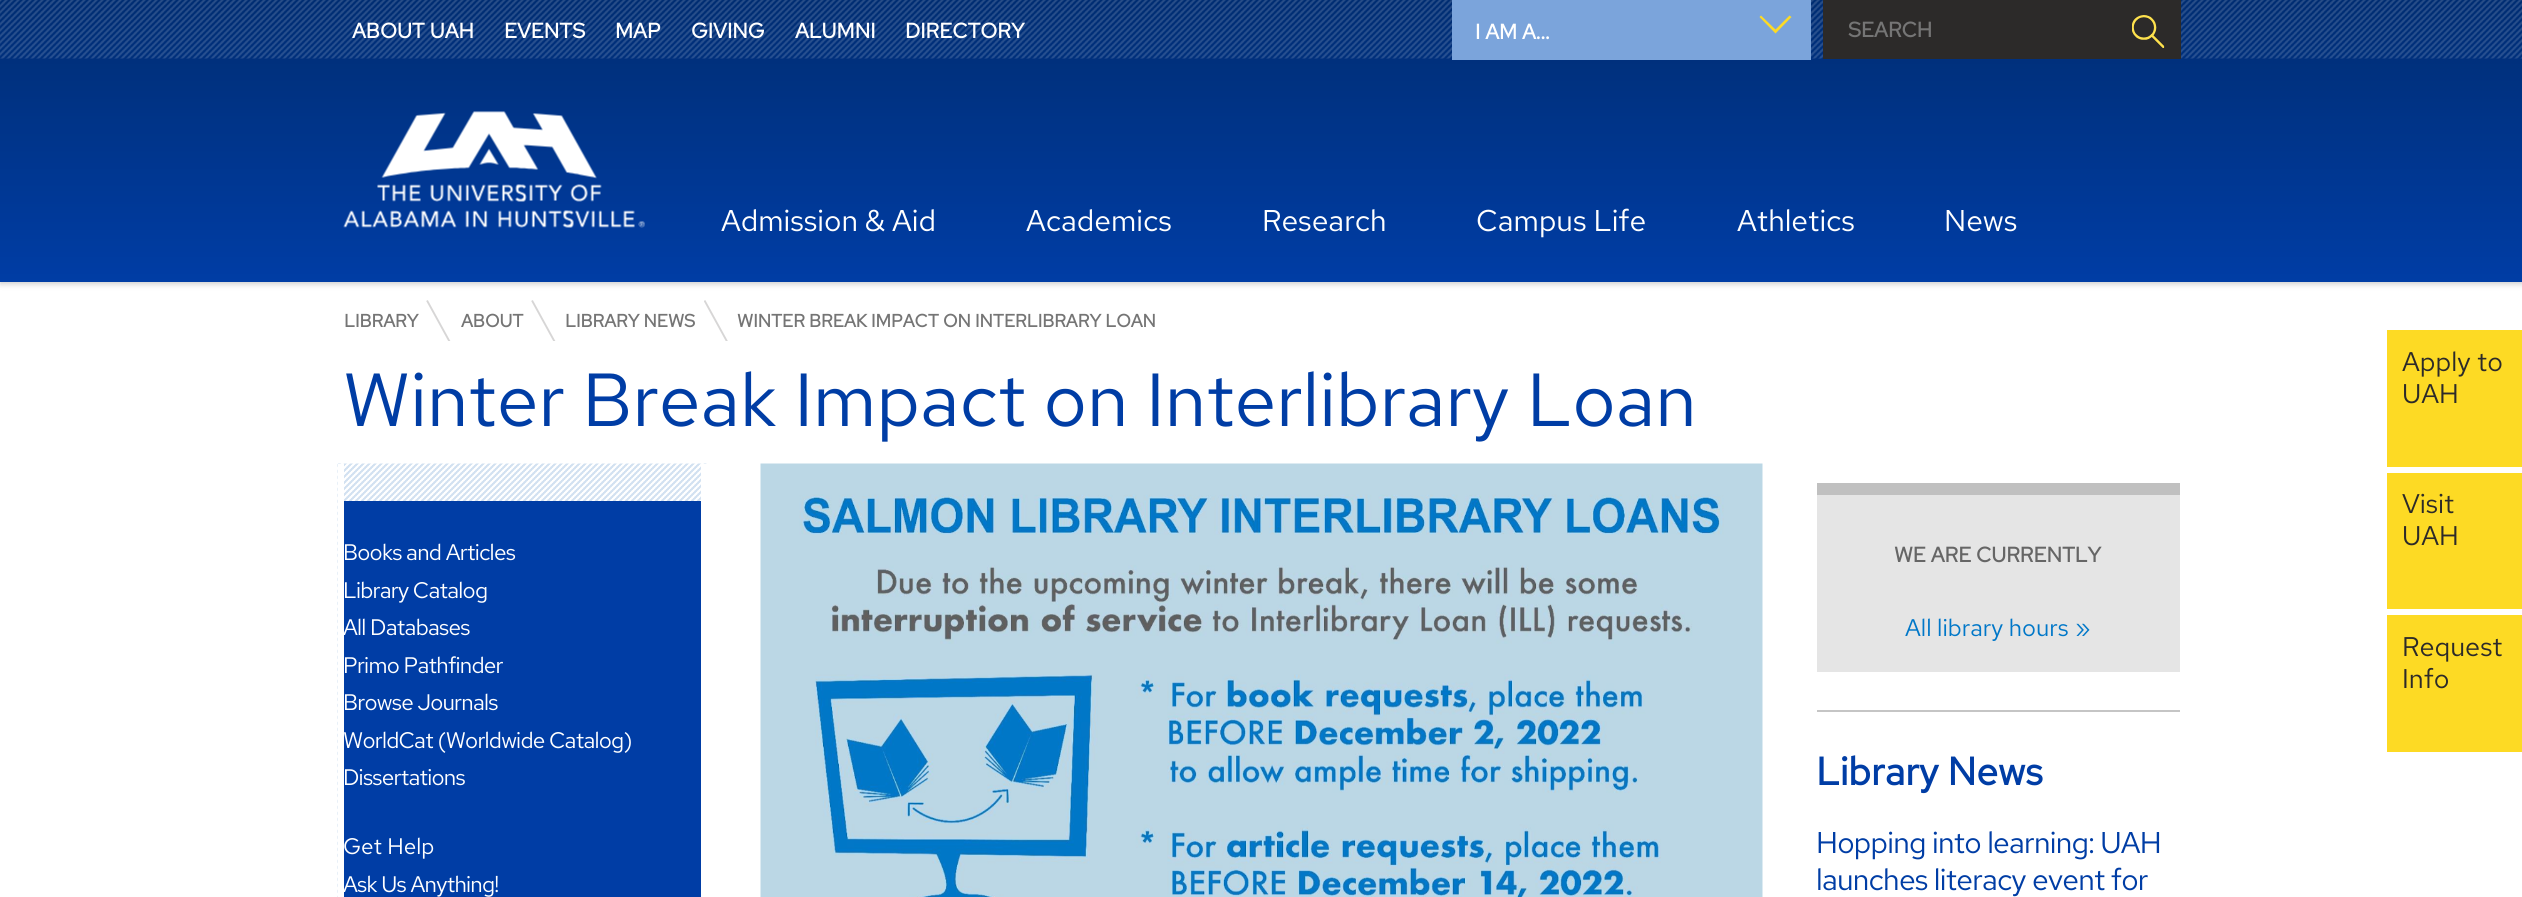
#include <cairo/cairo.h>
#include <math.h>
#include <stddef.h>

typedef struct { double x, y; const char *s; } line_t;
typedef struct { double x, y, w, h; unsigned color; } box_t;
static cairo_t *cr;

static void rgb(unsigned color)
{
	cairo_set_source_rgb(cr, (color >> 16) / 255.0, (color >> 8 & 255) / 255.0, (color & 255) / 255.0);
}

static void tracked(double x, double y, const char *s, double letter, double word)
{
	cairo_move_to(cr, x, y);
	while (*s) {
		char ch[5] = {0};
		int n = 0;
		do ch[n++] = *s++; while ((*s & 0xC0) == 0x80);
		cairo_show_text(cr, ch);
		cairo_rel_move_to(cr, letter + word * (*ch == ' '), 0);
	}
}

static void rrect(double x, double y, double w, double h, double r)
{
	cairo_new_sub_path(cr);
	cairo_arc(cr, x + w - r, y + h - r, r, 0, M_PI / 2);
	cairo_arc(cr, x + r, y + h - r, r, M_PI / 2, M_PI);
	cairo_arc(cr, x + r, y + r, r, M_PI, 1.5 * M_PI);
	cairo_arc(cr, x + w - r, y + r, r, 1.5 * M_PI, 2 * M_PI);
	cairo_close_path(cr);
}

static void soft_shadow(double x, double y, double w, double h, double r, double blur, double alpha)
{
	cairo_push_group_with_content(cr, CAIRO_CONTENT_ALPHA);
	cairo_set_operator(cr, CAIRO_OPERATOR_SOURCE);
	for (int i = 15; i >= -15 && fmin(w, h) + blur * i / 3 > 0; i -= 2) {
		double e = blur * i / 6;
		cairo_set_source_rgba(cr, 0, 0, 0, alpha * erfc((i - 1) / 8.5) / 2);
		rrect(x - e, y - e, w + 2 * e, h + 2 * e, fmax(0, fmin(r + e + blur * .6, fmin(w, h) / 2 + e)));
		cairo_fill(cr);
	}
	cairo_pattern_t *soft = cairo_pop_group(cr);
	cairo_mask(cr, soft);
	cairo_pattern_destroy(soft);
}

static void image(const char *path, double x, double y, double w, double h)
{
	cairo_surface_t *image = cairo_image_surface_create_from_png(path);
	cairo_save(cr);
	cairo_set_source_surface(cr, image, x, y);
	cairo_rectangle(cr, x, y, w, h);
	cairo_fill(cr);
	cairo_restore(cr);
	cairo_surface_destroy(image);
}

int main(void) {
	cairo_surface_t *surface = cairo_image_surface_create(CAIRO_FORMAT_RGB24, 2522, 897);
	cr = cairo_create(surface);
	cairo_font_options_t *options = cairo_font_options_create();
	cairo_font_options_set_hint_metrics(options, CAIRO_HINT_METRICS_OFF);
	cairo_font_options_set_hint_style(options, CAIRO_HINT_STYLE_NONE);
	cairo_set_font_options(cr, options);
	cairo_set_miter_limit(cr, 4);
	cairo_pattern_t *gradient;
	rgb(0xffffff);
	cairo_paint(cr);
	rgb(0x000000);
	soft_shadow(0, 2, 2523, 282, 0, 3, 0.2);
	gradient = cairo_pattern_create_linear(1262, 0, 1262, 282);
	cairo_pattern_add_color_stop_rgba(gradient, 0, 0, 0.176, 0.447, 1);
	cairo_pattern_add_color_stop_rgba(gradient, 1, 0, 0.239, 0.647, 1);
	cairo_set_source(cr, gradient);
	cairo_pattern_destroy(gradient);
	cairo_rectangle(cr, 0, 0, 2522, 282);
	cairo_fill(cr);
	image("img/1.png", 0, 0, 2522, 59);
	rgb(0x7ba4db);
	cairo_rectangle(cr, 1452, 0, 359, 60);
	cairo_fill(cr);
	rgb(0xfdda24);
	cairo_new_path(cr);
	cairo_move_to(cr, 1775.5, 33.5);
	cairo_line_to(cr, 1759.5, 17);
	cairo_line_to(cr, 1761, 15.5);
	cairo_line_to(cr, 1775.5, 29.5);
	cairo_line_to(cr, 1789.5, 15.5);
	cairo_line_to(cr, 1791.5, 17);
	cairo_close_path(cr);
	cairo_fill(cr);
	rgb(0x2c2a29);
	cairo_rectangle(cr, 1823, 0, 358, 59);
	cairo_fill(cr);
	image("img/2.png", 2132, 15, 33, 33);
	image("img/3.png", 343, 111, 302, 117);
	{
		static const box_t items[] = {
			{2387, 330, 135, 137, 0xfdda24},
			{2387, 473, 135, 136, 0xfdda24},
			{2387, 615, 135, 137, 0xfdda24},
		};
		for (size_t i = 0; i < sizeof items / sizeof *items; i++) {
			rgb(items[i].color);
			cairo_rectangle(cr, items[i].x, items[i].y, items[i].w, items[i].h);
			cairo_fill(cr);
		}
	}
	cairo_save(cr);
	cairo_rectangle(cr, 426, 300, 27, 41);
	cairo_clip(cr);
	cairo_new_path(cr);
	cairo_move_to(cr, 427, 300.5);
	cairo_line_to(cr, 452, 346);
	rgb(0xd7d6d6);
	cairo_set_line_width(cr, 1.9);
	cairo_stroke(cr);
	cairo_restore(cr);
	cairo_save(cr);
	cairo_rectangle(cr, 531, 300, 27, 41);
	cairo_clip(cr);
	cairo_new_path(cr);
	cairo_move_to(cr, 532, 300.5);
	cairo_line_to(cr, 557, 346);
	rgb(0xd7d6d6);
	cairo_set_line_width(cr, 1.9);
	cairo_stroke(cr);
	cairo_restore(cr);
	cairo_save(cr);
	cairo_rectangle(cr, 704, 300, 27, 41);
	cairo_clip(cr);
	cairo_new_path(cr);
	cairo_move_to(cr, 704.5, 300.5);
	cairo_line_to(cr, 729.5, 346);
	rgb(0xd7d6d6);
	cairo_set_line_width(cr, 1.9);
	cairo_stroke(cr);
	cairo_restore(cr);
	image("img/4.png", 337, 463, 370, 434);
	rgb(0xffffff);
	cairo_rectangle(cr, 701, 464, 6, 433);
	cairo_fill(cr);
	cairo_rectangle(cr, 338, 464, 6, 433);
	cairo_fill(cr);
	image("img/5.png", 760, 463, 1003, 434);
	{
		static const box_t items[] = {
			{344, 501, 357, 396, 0x003da5},
			{1817, 495, 363, 177, 0xe5e5e5},
			{1817, 483, 363, 12, 0xc0c0c0},
			{1817, 710, 363, 2, 0xc5c5c5},
		};
		for (size_t i = 0; i < sizeof items / sizeof *items; i++) {
			rgb(items[i].color);
			cairo_rectangle(cr, items[i].x, items[i].y, items[i].w, items[i].h);
			cairo_fill(cr);
		}
	}
	cairo_select_font_face(cr, "Red Hat Text", CAIRO_FONT_SLANT_NORMAL, CAIRO_FONT_WEIGHT_BOLD);
	cairo_set_font_size(cr, 21);
	rgb(0xffffff);
	{
		static const line_t items[] = {
			{352, 38, "ABOUT UAH"},
			{504, 38, "EVENTS"},
			{615, 38, "MAP"},
			{691, 38, "GIVING"},
			{795, 38, "ALUMNI"},
			{905, 38, "DIRECTORY"},
			{1475, 39, "I AM A..."},
		};
		for (size_t i = 0; i < sizeof items / sizeof *items; i++) {
			cairo_move_to(cr, items[i].x, items[i].y);
			cairo_show_text(cr, items[i].s);
		}
	}
	rgb(0x757575);
	cairo_move_to(cr, 1848, 37);
	cairo_show_text(cr, "SEARCH");
	cairo_select_font_face(cr, "Red Hat Text", CAIRO_FONT_SLANT_NORMAL, CAIRO_FONT_WEIGHT_NORMAL);
	cairo_set_font_size(cr, 30);
	rgb(0xffffff);
	{
		static const line_t items[] = {
			{721, 231, "Admission & Aid"},
			{1026, 231, "Academics"},
			{1262, 231, "Research"},
			{1476, 231, "Campus Life"},
			{1737, 231, "Athletics"},
			{1944, 231, "News"},
		};
		for (size_t i = 0; i < sizeof items / sizeof *items; i++) {
			cairo_move_to(cr, items[i].x, items[i].y);
			cairo_show_text(cr, items[i].s);
		}
	}
	cairo_set_font_size(cr, 27);
	rgb(0x2c2a29);
	{
		static const line_t items[] = {
			{2402, 371, "Apply to"},
			{2402, 403, "UAH"},
			{2402, 513, "Visit"},
			{2402, 545, "UAH"},
			{2402, 656, "Request"},
			{2402, 688, "Info"},
		};
		for (size_t i = 0; i < sizeof items / sizeof *items; i++) {
			cairo_move_to(cr, items[i].x, items[i].y);
			cairo_show_text(cr, items[i].s);
		}
	}
	cairo_select_font_face(cr, "Red Hat Text", CAIRO_FONT_SLANT_NORMAL, CAIRO_FONT_WEIGHT_BOLD);
	cairo_set_font_size(cr, 18);
	rgb(0x757575);
	{
		static const line_t items[] = {
			{344, 327, "LIBRARY"},
			{461, 327, "ABOUT"},
			{565, 327, "LIBRARY NEWS"},
			{737, 327, "WINTER BREAK IMPACT ON INTERLIBRARY LOAN"},
		};
		for (size_t i = 0; i < sizeof items / sizeof *items; i++) {
			cairo_move_to(cr, items[i].x, items[i].y);
			cairo_show_text(cr, items[i].s);
		}
	}
	cairo_select_font_face(cr, "Red Hat Text", CAIRO_FONT_SLANT_NORMAL, CAIRO_FONT_WEIGHT_NORMAL);
	cairo_set_font_size(cr, 75);
	rgb(0x003da5);
	cairo_move_to(cr, 343, 426);
	cairo_show_text(cr, "Winter Break Impact on Interlibrary Loan");
	cairo_set_font_size(cr, 22.5);
	rgb(0xffffff);
	{
		static const line_t items[] = {
			{343, 560, "Books and Articles"},
			{343, 598, "Library Catalog"},
			{343, 635, "All Databases"},
			{343, 673, "Primo Pathfinder"},
			{343, 710, "Browse Journals"},
			{343, 748, "WorldCat (Worldwide Catalog)"},
			{343, 785, "Dissertations"},
		};
		for (size_t i = 0; i < sizeof items / sizeof *items; i++) {
			tracked(items[i].x, items[i].y, items[i].s, -0.75, 0);
		}
	}
	cairo_move_to(cr, 343, 854);
	cairo_show_text(cr, "Get Help");
	tracked(343, 892, "Ask Us Anything!", -0.75, 0);
	cairo_select_font_face(cr, "Red Hat Text", CAIRO_FONT_SLANT_NORMAL, CAIRO_FONT_WEIGHT_BOLD);
	cairo_set_font_size(cr, 21);
	rgb(0x666666);
	cairo_move_to(cr, 1894, 562);
	cairo_show_text(cr, "WE ARE CURRENTLY");
	cairo_select_font_face(cr, "Red Hat Text", CAIRO_FONT_SLANT_NORMAL, CAIRO_FONT_WEIGHT_NORMAL);
	cairo_set_font_size(cr, 24);
	rgb(0x0077c8);
	cairo_move_to(cr, 1905, 636);
	cairo_show_text(cr, "All library hours");
	cairo_set_font_size(cr, 25);
	cairo_move_to(cr, 2075, 636);
	cairo_show_text(cr, "»");
	cairo_select_font_face(cr, "Red Hat Text", CAIRO_FONT_SLANT_NORMAL, CAIRO_FONT_WEIGHT_BOLD);
	cairo_set_font_size(cr, 39);
	rgb(0x003da5);
	cairo_move_to(cr, 1816, 785);
	cairo_show_text(cr, "Library News");
	cairo_select_font_face(cr, "Red Hat Text", CAIRO_FONT_SLANT_NORMAL, CAIRO_FONT_WEIGHT_NORMAL);
	cairo_set_font_size(cr, 30);
	tracked(1816, 853, "Hopping into learning: UAH", -0.75, 0);
	tracked(1816, 890, "launches literacy event for", -0.75, 0);
	cairo_surface_write_to_png(surface, "page.png");
	cairo_font_options_destroy(options);
	cairo_destroy(cr);
	cairo_surface_destroy(surface);
	return 0;
}
